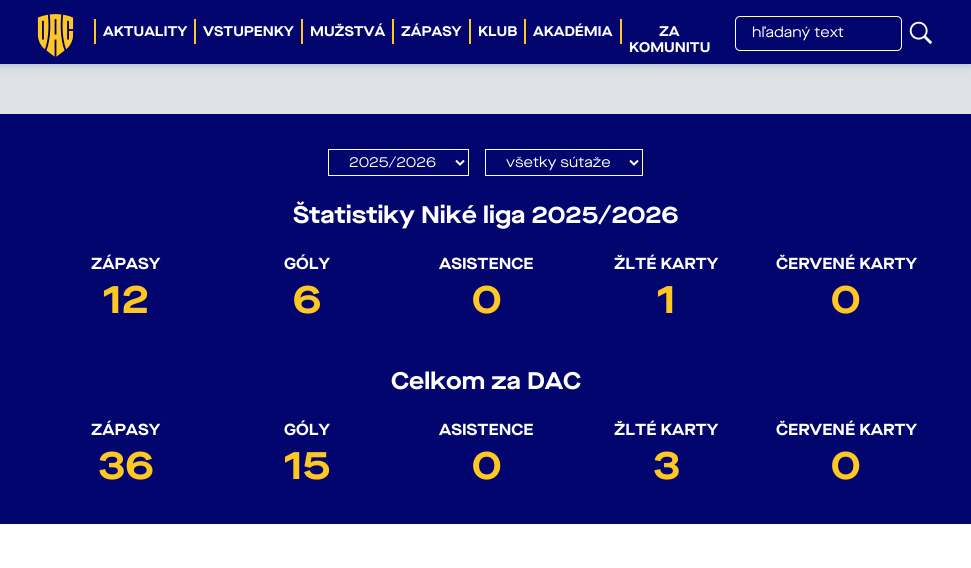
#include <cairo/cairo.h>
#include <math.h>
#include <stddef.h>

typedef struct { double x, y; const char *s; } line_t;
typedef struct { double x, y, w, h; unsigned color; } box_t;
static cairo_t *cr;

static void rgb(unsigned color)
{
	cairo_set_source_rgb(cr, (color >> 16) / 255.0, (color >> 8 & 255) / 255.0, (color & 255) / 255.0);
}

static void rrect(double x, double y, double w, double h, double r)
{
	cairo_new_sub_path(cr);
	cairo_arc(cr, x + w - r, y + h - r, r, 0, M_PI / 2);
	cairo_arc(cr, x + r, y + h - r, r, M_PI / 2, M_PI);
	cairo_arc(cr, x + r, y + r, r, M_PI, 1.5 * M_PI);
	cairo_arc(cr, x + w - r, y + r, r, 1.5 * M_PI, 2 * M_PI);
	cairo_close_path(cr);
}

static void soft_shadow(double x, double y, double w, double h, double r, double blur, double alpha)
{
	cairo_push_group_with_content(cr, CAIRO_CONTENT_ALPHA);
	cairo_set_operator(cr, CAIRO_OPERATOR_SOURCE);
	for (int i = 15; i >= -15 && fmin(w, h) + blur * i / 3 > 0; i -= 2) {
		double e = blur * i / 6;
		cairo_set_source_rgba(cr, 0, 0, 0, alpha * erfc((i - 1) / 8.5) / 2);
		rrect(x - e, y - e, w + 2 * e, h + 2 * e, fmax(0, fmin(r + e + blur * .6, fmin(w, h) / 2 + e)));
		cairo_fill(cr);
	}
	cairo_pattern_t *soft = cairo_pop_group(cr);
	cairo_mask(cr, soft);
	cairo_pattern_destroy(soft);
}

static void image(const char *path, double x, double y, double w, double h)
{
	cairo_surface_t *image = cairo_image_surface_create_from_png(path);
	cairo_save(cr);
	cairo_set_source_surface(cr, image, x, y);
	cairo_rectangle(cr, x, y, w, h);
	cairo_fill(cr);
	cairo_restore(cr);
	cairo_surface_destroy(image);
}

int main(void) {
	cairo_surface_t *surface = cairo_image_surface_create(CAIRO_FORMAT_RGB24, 971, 568);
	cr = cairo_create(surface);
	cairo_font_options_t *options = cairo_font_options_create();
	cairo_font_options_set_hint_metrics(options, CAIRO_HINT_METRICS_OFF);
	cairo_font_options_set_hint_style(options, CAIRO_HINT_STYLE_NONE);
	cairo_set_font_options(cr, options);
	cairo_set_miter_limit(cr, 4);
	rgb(0xffffff);
	cairo_paint(cr);
	rgb(0xdee2e6);
	cairo_rectangle(cr, 0, 64, 971, 50);
	cairo_fill(cr);
	rgb(0x123063);
	soft_shadow(0, 2, 971, 64, 0, 4, 0.2);
	rgb(0x01056d);
	cairo_rectangle(cr, 0, 0, 971, 64);
	cairo_fill(cr);
	image("img/1.png", 36, 13, 39, 46);
	{
		static const box_t items[] = {
			{94, 19, 2, 25, 0xffc723},
			{194, 19, 2, 25, 0xffc723},
			{301, 19, 2, 25, 0xffc723},
			{392, 19, 2, 25, 0xffc723},
			{469, 19, 2, 25, 0xffc723},
			{524, 19, 2, 25, 0xffc723},
			{620, 19, 2, 25, 0xffc723},
		};
		for (size_t i = 0; i < sizeof items / sizeof *items; i++) {
			rgb(items[i].color);
			cairo_rectangle(cr, items[i].x, items[i].y, items[i].w, items[i].h);
			cairo_fill(cr);
		}
	}
	rrect(735.5, 16.5, 166, 34, 4.5);
	rgb(0xffffff);
	cairo_set_line_width(cr, 1);
	cairo_stroke(cr);
	image("img/2.png", 909, 21, 24, 24);
	rgb(0x01056d);
	cairo_rectangle(cr, 0, 114, 971, 410);
	cairo_fill(cr);
	cairo_rectangle(cr, 328.5, 149.5, 140, 26);
	rgb(0xffffff);
	cairo_stroke(cr);
	cairo_new_path(cr);
	cairo_move_to(cr, 456, 160.5);
	cairo_line_to(cr, 460, 164.5);
	cairo_line_to(cr, 464, 160.5);
	cairo_set_line_width(cr, 2);
	cairo_stroke(cr);
	cairo_rectangle(cr, 485.5, 149.5, 157, 26);
	cairo_set_line_width(cr, 1);
	cairo_stroke(cr);
	cairo_new_path(cr);
	cairo_move_to(cr, 630, 160.5);
	cairo_line_to(cr, 634, 164.5);
	cairo_line_to(cr, 638, 160.5);
	cairo_set_line_width(cr, 2);
	cairo_stroke(cr);
	cairo_select_font_face(cr, "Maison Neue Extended", CAIRO_FONT_SLANT_NORMAL, CAIRO_FONT_WEIGHT_BOLD);
	cairo_set_font_size(cr, 14);
	{
		static const line_t items[] = {
			{103, 36, "AKTUALITY"},
			{203, 36, "VSTUPENKY"},
			{310, 36, "MUŽSTVÁ"},
			{401, 36, "ZÁPASY"},
			{478, 36, "KLUB"},
			{533, 36, "AKADÉMIA"},
			{659, 36, "ZA"},
			{629, 52, "KOMUNITU"},
		};
		for (size_t i = 0; i < sizeof items / sizeof *items; i++) {
			cairo_move_to(cr, items[i].x, items[i].y);
			cairo_show_text(cr, items[i].s);
		}
	}
	cairo_select_font_face(cr, "Maison Neue Extended", CAIRO_FONT_SLANT_NORMAL, CAIRO_FONT_WEIGHT_NORMAL);
	cairo_set_font_size(cr, 14.5);
	{
		static const line_t items[] = {
			{752, 37, "hľadaný text"},
			{349, 167, "2025/2026"},
			{506, 167, "všetky sútaže"},
		};
		for (size_t i = 0; i < sizeof items / sizeof *items; i++) {
			cairo_move_to(cr, items[i].x, items[i].y);
			cairo_show_text(cr, items[i].s);
		}
	}
	cairo_select_font_face(cr, "Maison Neue Extended", CAIRO_FONT_SLANT_NORMAL, CAIRO_FONT_WEIGHT_BOLD);
	cairo_set_font_size(cr, 24);
	cairo_move_to(cr, 293, 223);
	cairo_show_text(cr, "Štatistiky Niké liga 2025/2026");
	cairo_set_font_size(cr, 16);
	cairo_move_to(cr, 91, 269);
	cairo_show_text(cr, "ZÁPASY");
	cairo_set_font_size(cr, 40);
	rgb(0xffc723);
	cairo_move_to(cr, 103, 313);
	cairo_show_text(cr, "12");
	cairo_set_font_size(cr, 16);
	rgb(0xffffff);
	cairo_move_to(cr, 284, 269);
	cairo_show_text(cr, "GÓLY");
	cairo_set_font_size(cr, 40);
	rgb(0xffc723);
	cairo_move_to(cr, 293, 313);
	cairo_show_text(cr, "6");
	cairo_set_font_size(cr, 16);
	rgb(0xffffff);
	cairo_move_to(cr, 439, 269);
	cairo_show_text(cr, "ASISTENCE");
	cairo_set_font_size(cr, 40);
	rgb(0xffc723);
	cairo_move_to(cr, 472, 313);
	cairo_show_text(cr, "0");
	cairo_set_font_size(cr, 16);
	rgb(0xffffff);
	cairo_move_to(cr, 614, 269);
	cairo_show_text(cr, "ŽLTÉ KARTY");
	cairo_set_font_size(cr, 40);
	rgb(0xffc723);
	cairo_move_to(cr, 657, 313);
	cairo_show_text(cr, "1");
	cairo_set_font_size(cr, 16);
	rgb(0xffffff);
	cairo_move_to(cr, 776, 269);
	cairo_show_text(cr, "ČERVENÉ KARTY");
	cairo_set_font_size(cr, 40);
	rgb(0xffc723);
	cairo_move_to(cr, 831, 313);
	cairo_show_text(cr, "0");
	cairo_set_font_size(cr, 24);
	rgb(0xffffff);
	cairo_move_to(cr, 391, 389);
	cairo_show_text(cr, "Celkom za DAC");
	cairo_set_font_size(cr, 16);
	cairo_move_to(cr, 91, 435);
	cairo_show_text(cr, "ZÁPASY");
	cairo_set_font_size(cr, 40);
	rgb(0xffc723);
	cairo_move_to(cr, 98, 479);
	cairo_show_text(cr, "36");
	cairo_set_font_size(cr, 16);
	rgb(0xffffff);
	cairo_move_to(cr, 284, 435);
	cairo_show_text(cr, "GÓLY");
	cairo_set_font_size(cr, 40);
	rgb(0xffc723);
	cairo_move_to(cr, 284, 479);
	cairo_show_text(cr, "15");
	cairo_set_font_size(cr, 16);
	rgb(0xffffff);
	cairo_move_to(cr, 439, 435);
	cairo_show_text(cr, "ASISTENCE");
	cairo_set_font_size(cr, 40);
	rgb(0xffc723);
	cairo_move_to(cr, 472, 479);
	cairo_show_text(cr, "0");
	cairo_set_font_size(cr, 16);
	rgb(0xffffff);
	cairo_move_to(cr, 614, 435);
	cairo_show_text(cr, "ŽLTÉ KARTY");
	cairo_set_font_size(cr, 40);
	rgb(0xffc723);
	cairo_move_to(cr, 653, 479);
	cairo_show_text(cr, "3");
	cairo_set_font_size(cr, 16);
	rgb(0xffffff);
	cairo_move_to(cr, 776, 435);
	cairo_show_text(cr, "ČERVENÉ KARTY");
	cairo_set_font_size(cr, 40);
	rgb(0xffc723);
	cairo_move_to(cr, 831, 479);
	cairo_show_text(cr, "0");
	cairo_surface_write_to_png(surface, "page.png");
	cairo_font_options_destroy(options);
	cairo_destroy(cr);
	cairo_surface_destroy(surface);
	return 0;
}
